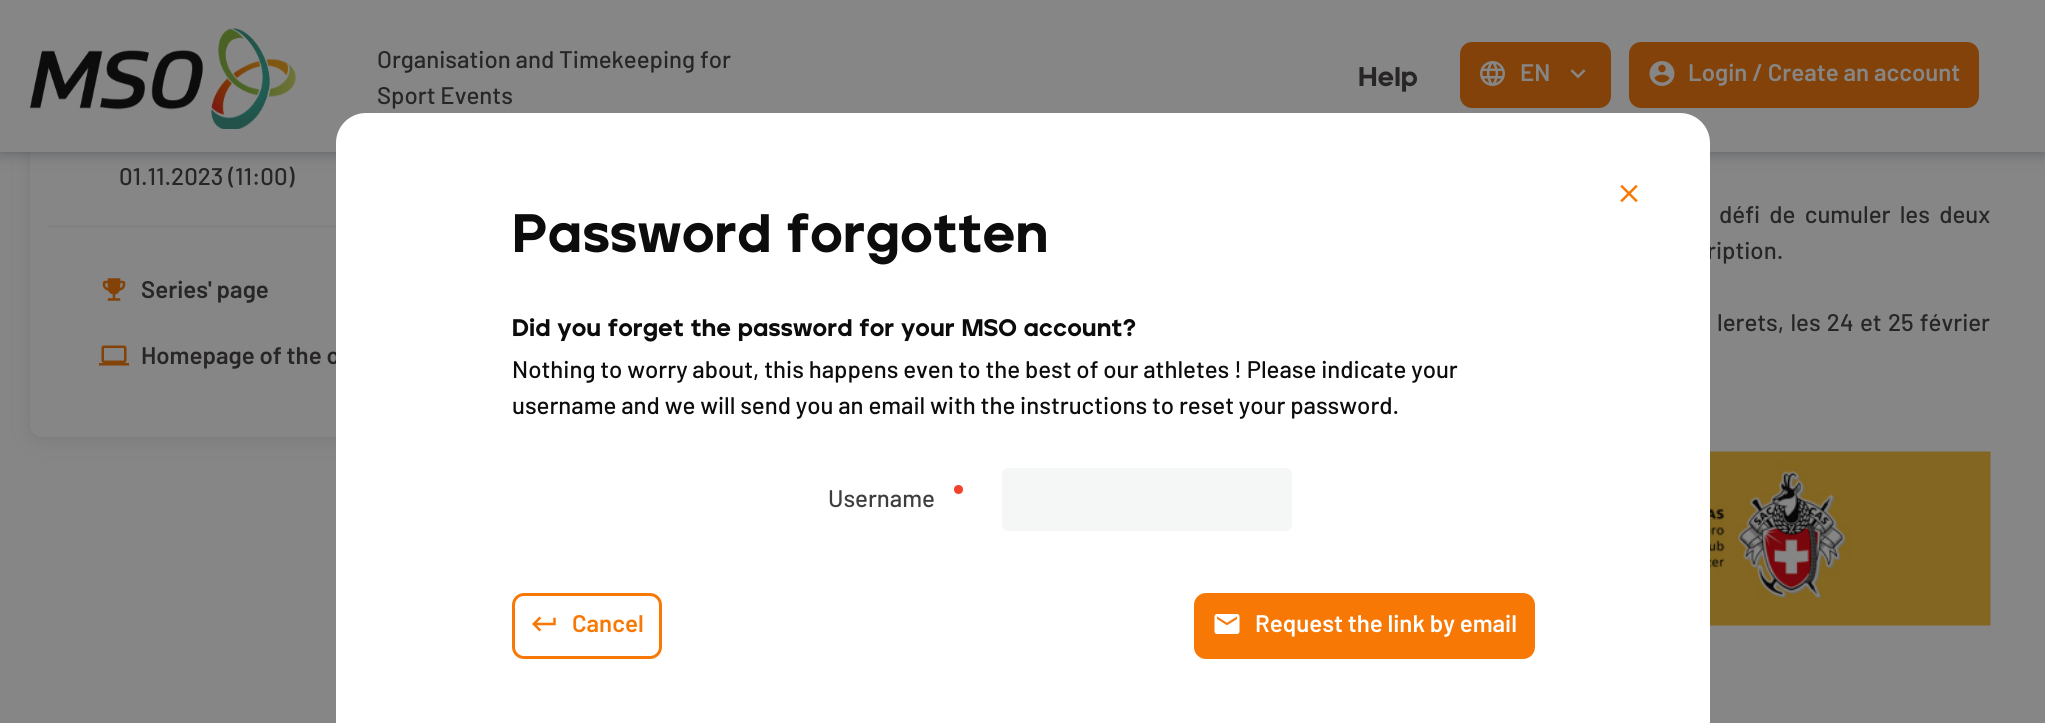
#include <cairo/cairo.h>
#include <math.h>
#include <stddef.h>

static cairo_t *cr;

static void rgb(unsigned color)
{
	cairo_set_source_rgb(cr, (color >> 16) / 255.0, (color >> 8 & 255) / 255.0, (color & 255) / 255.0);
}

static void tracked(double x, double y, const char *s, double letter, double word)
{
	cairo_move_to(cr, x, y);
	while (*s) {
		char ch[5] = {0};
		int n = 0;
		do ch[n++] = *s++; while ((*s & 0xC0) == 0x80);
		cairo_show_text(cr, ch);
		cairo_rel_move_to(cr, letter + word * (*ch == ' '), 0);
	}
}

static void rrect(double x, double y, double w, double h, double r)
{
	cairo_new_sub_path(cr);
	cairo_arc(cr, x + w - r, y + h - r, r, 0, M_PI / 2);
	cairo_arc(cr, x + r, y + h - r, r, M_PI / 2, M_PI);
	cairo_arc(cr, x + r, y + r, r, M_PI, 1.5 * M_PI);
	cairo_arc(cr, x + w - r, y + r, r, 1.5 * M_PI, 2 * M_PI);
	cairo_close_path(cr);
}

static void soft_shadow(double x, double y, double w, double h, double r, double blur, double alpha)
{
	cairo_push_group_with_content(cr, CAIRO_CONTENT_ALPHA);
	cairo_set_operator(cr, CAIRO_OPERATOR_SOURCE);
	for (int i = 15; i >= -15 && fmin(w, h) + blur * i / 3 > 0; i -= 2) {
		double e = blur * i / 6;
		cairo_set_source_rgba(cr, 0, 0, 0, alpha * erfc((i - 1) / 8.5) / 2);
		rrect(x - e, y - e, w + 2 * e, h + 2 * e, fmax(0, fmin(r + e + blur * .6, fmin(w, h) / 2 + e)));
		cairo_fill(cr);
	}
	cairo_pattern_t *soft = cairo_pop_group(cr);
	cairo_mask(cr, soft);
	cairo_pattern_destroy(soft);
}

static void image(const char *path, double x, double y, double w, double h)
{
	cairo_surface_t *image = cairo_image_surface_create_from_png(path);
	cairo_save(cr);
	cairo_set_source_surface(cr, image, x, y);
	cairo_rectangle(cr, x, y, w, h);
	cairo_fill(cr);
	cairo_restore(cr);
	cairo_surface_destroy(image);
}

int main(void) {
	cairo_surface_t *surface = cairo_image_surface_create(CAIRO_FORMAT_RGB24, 2045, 723);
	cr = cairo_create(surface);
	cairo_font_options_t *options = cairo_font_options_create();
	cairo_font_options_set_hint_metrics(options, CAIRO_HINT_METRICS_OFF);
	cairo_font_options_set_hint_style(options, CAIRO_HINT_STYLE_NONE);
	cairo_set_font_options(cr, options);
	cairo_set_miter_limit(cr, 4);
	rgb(0x868686);
	cairo_paint(cr);
	rgb(0x474343);
	soft_shadow(30, -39, 527, 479, 12, 9, 0.2);
	rgb(0x868686);
	rrect(30, -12, 527, 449, 12);
	cairo_fill(cr);
	rgb(0x293841);
	soft_shadow(0, 0, 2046, 152, 0, 7.5, 0.5);
	rgb(0x868686);
	cairo_rectangle(cr, 0, 0, 2045, 152);
	cairo_fill(cr);
	image("img/1.png", 30, 28, 266, 101);
	rgb(0x824209);
	rrect(1461.5, 43.5, 148, 63, 10.5);
	cairo_fill_preserve(cr);
	cairo_set_line_width(cr, 3);
	cairo_stroke(cr);
	image("img/2.png", 1480, 61, 25, 25);
	image("img/3.png", 1570, 69, 16, 10);
	rrect(1630.5, 43.5, 347, 63, 10.5);
	cairo_fill_preserve(cr);
	cairo_stroke(cr);
	image("img/4.png", 1649, 61, 26, 25);
	rgb(0x818282);
	cairo_rectangle(cr, 47, 225, 289, 3);
	cairo_fill(cr);
	image("img/5.png", 102, 278, 24, 23);
	image("img/6.png", 99, 345, 30, 21);
	image("img/7.png", 1710, 451, 281, 175);
	cairo_select_font_face(cr, "Barlow Medium", CAIRO_FONT_SLANT_NORMAL, CAIRO_FONT_WEIGHT_NORMAL);
	cairo_set_font_size(cr, 24);
	rgb(0x272525);
	cairo_move_to(cr, 377, 68);
	cairo_show_text(cr, "Organisation and Timekeeping for");
	cairo_move_to(cr, 377, 104);
	cairo_show_text(cr, "Sport Events");
	cairo_select_font_face(cr, "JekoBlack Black", CAIRO_FONT_SLANT_NORMAL, CAIRO_FONT_WEIGHT_NORMAL);
	cairo_set_font_size(cr, 27);
	cairo_move_to(cr, 1358, 86);
	cairo_show_text(cr, "Help");
	cairo_select_font_face(cr, "Barlow SemiBold", CAIRO_FONT_SLANT_NORMAL, CAIRO_FONT_WEIGHT_NORMAL);
	cairo_set_font_size(cr, 24);
	rgb(0x868686);
	cairo_move_to(cr, 1520, 81);
	cairo_show_text(cr, "EN");
	cairo_move_to(cr, 1688, 81);
	cairo_show_text(cr, "Login / Create an account");
	cairo_select_font_face(cr, "Barlow Medium", CAIRO_FONT_SLANT_NORMAL, CAIRO_FONT_WEIGHT_NORMAL);
	rgb(0x272525);
	cairo_move_to(cr, 119, 185);
	cairo_show_text(cr, "01.11.2023 (11:00)");
	cairo_select_font_face(cr, "Barlow SemiBold", CAIRO_FONT_SLANT_NORMAL, CAIRO_FONT_WEIGHT_NORMAL);
	cairo_move_to(cr, 141, 298);
	cairo_show_text(cr, "Series' page");
	cairo_move_to(cr, 141, 364);
	cairo_show_text(cr, "Homepage of the o");
	cairo_select_font_face(cr, "Barlow Medium", CAIRO_FONT_SLANT_NORMAL, CAIRO_FONT_WEIGHT_NORMAL);
	tracked(1719, 223, "défi de cumuler les deux", 0, 4.5);
	cairo_move_to(cr, 1707, 259);
	cairo_show_text(cr, "ription.");
	tracked(1717, 331, "lerets, les 24 et 25 février", 0, 1.5);
	rgb(0xffffff);
	rrect(336, 113, 1374, 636, 30);
	cairo_fill(cr);
	image("img/8.png", 1620, 184, 18, 19);
	cairo_select_font_face(cr, "JekoBlack Black", CAIRO_FONT_SLANT_NORMAL, CAIRO_FONT_WEIGHT_NORMAL);
	cairo_set_font_size(cr, 54);
	rgb(0x0d0c0c);
	cairo_move_to(cr, 512, 252);
	cairo_show_text(cr, "Password forgotten");
	cairo_set_font_size(cr, 24);
	cairo_move_to(cr, 512, 336);
	cairo_show_text(cr, "Did you forget the password for your MSO account?");
	cairo_select_font_face(cr, "Barlow Medium", CAIRO_FONT_SLANT_NORMAL, CAIRO_FONT_WEIGHT_NORMAL);
	cairo_move_to(cr, 512, 378);
	cairo_show_text(cr, "Nothing to worry about, this happens even to the best of our athletes ! Please indicate your");
	cairo_move_to(cr, 512, 414);
	cairo_show_text(cr, "username and we will send you an email with the instructions to reset your password.");
	rgb(0x403d3d);
	cairo_move_to(cr, 828, 507);
	cairo_show_text(cr, "Username");
	rgb(0xf1422c);
	cairo_new_path(cr);
	cairo_arc(cr, 958.5, 489.5, 4.5, 0, 2 * M_PI);
	cairo_fill(cr);
	rgb(0xf5f7f7);
	rrect(1002, 468, 290, 63, 6);
	cairo_fill(cr);
	cairo_save(cr);
	rrect(336, 113, 1374, 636, 30);
	cairo_clip(cr);
	rgb(0xffffff);
	cairo_rectangle(cr, 336, 593, 1374, 130);
	cairo_fill(cr);
	cairo_restore(cr);
	rrect(513.5, 594.5, 147, 63, 10.5);
	rgb(0xf77805);
	cairo_stroke(cr);
	image("img/9.png", 532, 616, 24, 16);
	cairo_select_font_face(cr, "Barlow SemiBold", CAIRO_FONT_SLANT_NORMAL, CAIRO_FONT_WEIGHT_NORMAL);
	cairo_move_to(cr, 572, 632);
	cairo_show_text(cr, "Cancel");
	rrect(1195.5, 594.5, 338, 63, 10.5);
	cairo_fill_preserve(cr);
	cairo_stroke(cr);
	image("img/10.png", 1214, 614, 26, 20);
	rgb(0xffffff);
	cairo_move_to(cr, 1255, 632);
	cairo_show_text(cr, "Request the link by email");
	cairo_surface_write_to_png(surface, "page.png");
	cairo_font_options_destroy(options);
	cairo_destroy(cr);
	cairo_surface_destroy(surface);
	return 0;
}
